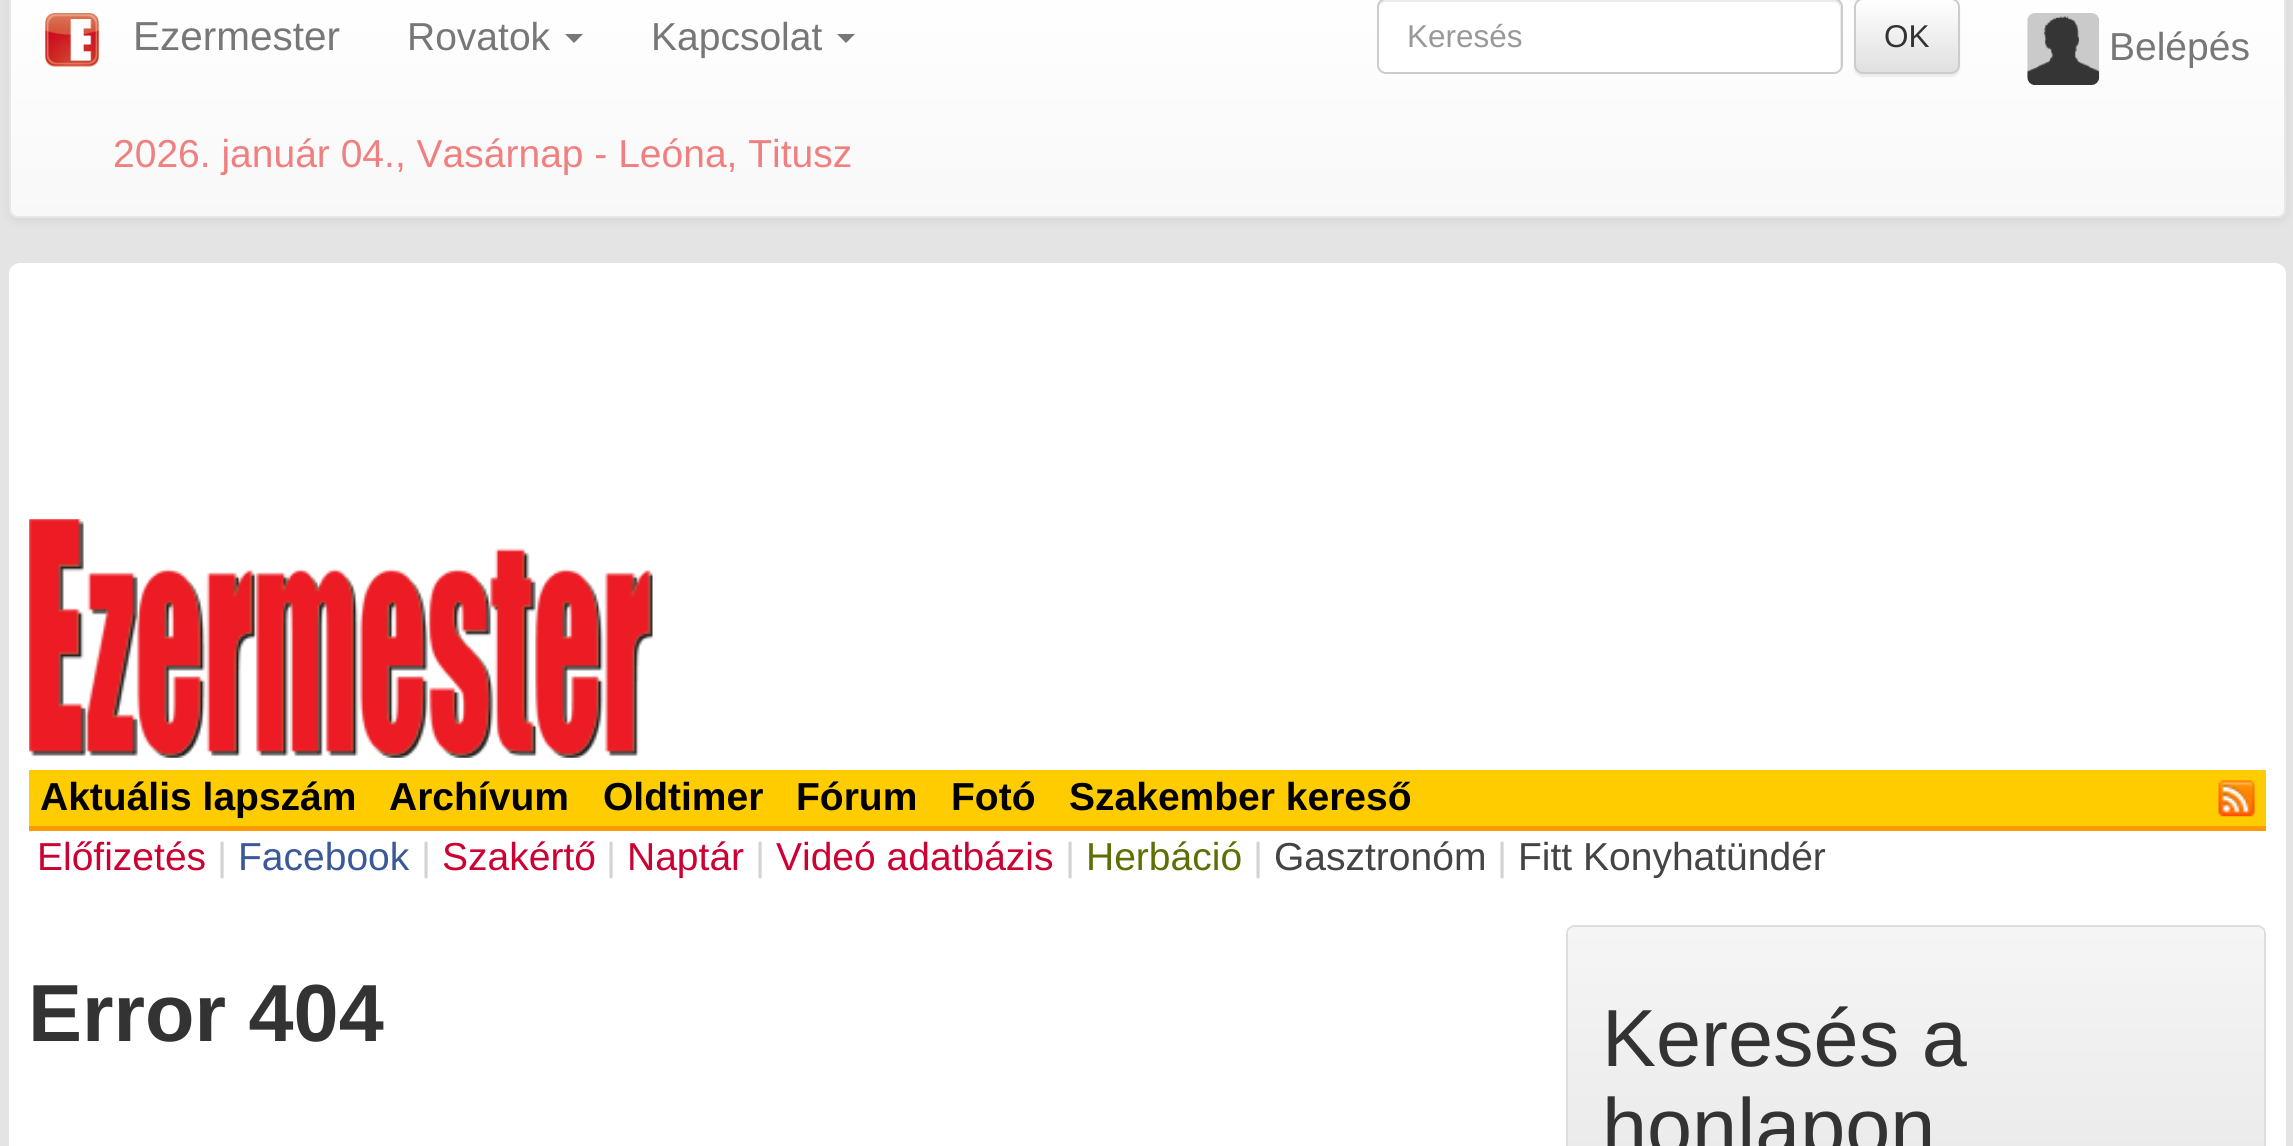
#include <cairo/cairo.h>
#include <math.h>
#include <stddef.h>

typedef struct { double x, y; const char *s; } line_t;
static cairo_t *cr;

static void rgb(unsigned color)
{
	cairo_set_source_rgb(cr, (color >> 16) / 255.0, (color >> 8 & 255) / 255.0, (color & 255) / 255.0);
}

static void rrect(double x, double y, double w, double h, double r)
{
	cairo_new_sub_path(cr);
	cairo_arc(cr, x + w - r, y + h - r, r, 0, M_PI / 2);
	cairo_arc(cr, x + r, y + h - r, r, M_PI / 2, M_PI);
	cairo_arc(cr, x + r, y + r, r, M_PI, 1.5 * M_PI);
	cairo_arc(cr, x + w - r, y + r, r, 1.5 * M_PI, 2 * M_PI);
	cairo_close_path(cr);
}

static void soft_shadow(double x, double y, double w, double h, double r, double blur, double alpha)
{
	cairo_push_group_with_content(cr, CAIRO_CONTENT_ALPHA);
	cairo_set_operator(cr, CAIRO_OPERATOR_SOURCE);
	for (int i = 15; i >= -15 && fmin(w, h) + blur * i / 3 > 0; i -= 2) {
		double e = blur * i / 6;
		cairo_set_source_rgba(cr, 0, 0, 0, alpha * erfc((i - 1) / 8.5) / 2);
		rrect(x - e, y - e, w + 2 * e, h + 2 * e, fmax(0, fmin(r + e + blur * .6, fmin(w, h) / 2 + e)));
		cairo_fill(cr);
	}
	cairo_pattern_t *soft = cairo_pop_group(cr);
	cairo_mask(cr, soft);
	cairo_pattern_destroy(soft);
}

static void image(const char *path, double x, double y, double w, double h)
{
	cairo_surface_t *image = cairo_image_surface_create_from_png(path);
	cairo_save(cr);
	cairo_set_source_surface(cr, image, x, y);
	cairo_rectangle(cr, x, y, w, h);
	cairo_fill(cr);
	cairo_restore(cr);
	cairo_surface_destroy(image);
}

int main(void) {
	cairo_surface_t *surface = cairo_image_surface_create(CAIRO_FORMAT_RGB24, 2293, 1146);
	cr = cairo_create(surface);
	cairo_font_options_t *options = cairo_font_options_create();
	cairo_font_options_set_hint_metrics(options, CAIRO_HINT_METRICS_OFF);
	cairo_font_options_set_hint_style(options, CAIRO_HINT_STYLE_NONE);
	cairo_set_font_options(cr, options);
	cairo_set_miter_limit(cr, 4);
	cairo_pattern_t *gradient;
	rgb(0xe4e4e4);
	cairo_paint(cr);
	rgb(0x000000);
	soft_shadow(9, -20, 2277, 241, 9, 5.5, 0.07);
	cairo_save(cr);
	rrect(9, -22, 2277, 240, 9);
	cairo_clip(cr);
	gradient = cairo_pattern_create_linear(1148, -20, 1148, 216);
	cairo_pattern_add_color_stop_rgba(gradient, 0, 1, 1, 1, 1);
	cairo_pattern_add_color_stop_rgba(gradient, 1, 0.973, 0.973, 0.973, 1);
	cairo_set_source(cr, gradient);
	cairo_pattern_destroy(gradient);
	cairo_rectangle(cr, 9, 0, 2277, 216);
	cairo_fill(cr);
	cairo_restore(cr);
	rrect(10, -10, 2275, 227, 8);
	rgb(0xe7e7e7);
	cairo_stroke(cr);
	rgb(0x777777);
	cairo_new_path(cr);
	cairo_move_to(cr, 565, 34);
	cairo_line_to(cr, 583, 34);
	cairo_line_to(cr, 574, 43);
	cairo_close_path(cr);
	cairo_fill(cr);
	cairo_new_path(cr);
	cairo_move_to(cr, 837, 34);
	cairo_line_to(cr, 855, 34);
	cairo_line_to(cr, 846, 43);
	cairo_close_path(cr);
	cairo_fill(cr);
	rgb(0xffffff);
	rrect(1377, -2, 466, 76, 9);
	cairo_fill(cr);
	rgb(0xececec);
	cairo_new_path(cr);
	cairo_move_to(cr, 1386, 2);
	cairo_line_to(cr, 1834, 2);
	cairo_curve_to(cr, 1837, 2, 1840, 5, 1840, 9);
	cairo_line_to(cr, 1840, 69);
	cairo_curve_to(cr, 1841, 68, 1841, 66, 1841, 65);
	cairo_line_to(cr, 1841, 7);
	cairo_curve_to(cr, 1841, 3, 1838, 0, 1834, 0);
	cairo_line_to(cr, 1386, 0);
	cairo_curve_to(cr, 1382, 0, 1379, 3, 1379, 7);
	cairo_line_to(cr, 1379, 9);
	cairo_curve_to(cr, 1379, 5, 1382, 2, 1386, 2);
	cairo_close_path(cr);
	cairo_fill(cr);
	rrect(1378, -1, 464, 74, 8);
	rgb(0xcccccc);
	cairo_stroke(cr);
	rgb(0x000000);
	soft_shadow(1854, 0, 106, 77, 9, 1, 0.07);
	cairo_save(cr);
	rrect(1854, -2, 106, 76, 9);
	cairo_clip(cr);
	gradient = cairo_pattern_create_linear(1907, 0, 1907, 72);
	cairo_pattern_add_color_stop_rgba(gradient, 0, 1, 1, 1, 1);
	cairo_pattern_add_color_stop_rgba(gradient, 1, 0.878, 0.878, 0.878, 1);
	cairo_set_source(cr, gradient);
	cairo_pattern_destroy(gradient);
	cairo_rectangle(cr, 1854, 0, 106, 72);
	cairo_fill(cr);
	cairo_restore(cr);
	rrect(1855, -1, 104, 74, 8);
	rgb(0xcccccc);
	cairo_stroke(cr);
	image("img/1.png", 2027, 13, 73, 72);
	image("img/2.png", 45, 13, 54, 54);
	rgb(0xffffff);
	rrect(9, 263, 2277, 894, 11);
	cairo_fill(cr);
	image("img/3.png", 29, 519, 624, 239);
	rgb(0xffcc00);
	cairo_rectangle(cr, 29, 770, 2237, 56);
	cairo_fill(cr);
	rgb(0xff9900);
	cairo_rectangle(cr, 29, 826, 2237, 5);
	cairo_fill(cr);
	image("img/4.png", 2218, 780, 37, 37);
	rrect(1567, 926, 698, 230, 8);
	rgb(0xdddddd);
	cairo_stroke(cr);
	gradient = cairo_pattern_create_linear(1916, 927, 1916, 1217);
	cairo_pattern_add_color_stop_rgba(gradient, 0, 0.961, 0.961, 0.961, 1);
	cairo_pattern_add_color_stop_rgba(gradient, 1, 0.91, 0.91, 0.91, 1);
	cairo_set_source(cr, gradient);
	cairo_pattern_destroy(gradient);
	cairo_new_path(cr);
	cairo_move_to(cr, 1575, 927);
	cairo_line_to(cr, 2257, 927);
	cairo_curve_to(cr, 2261, 927, 2264, 930, 2264, 934);
	cairo_line_to(cr, 2264, 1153);
	cairo_line_to(cr, 1568, 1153);
	cairo_line_to(cr, 1568, 934);
	cairo_curve_to(cr, 1568, 930, 1571, 927, 1575, 927);
	cairo_close_path(cr);
	cairo_fill(cr);
	cairo_select_font_face(cr, "Liberation Sans", CAIRO_FONT_SLANT_NORMAL, CAIRO_FONT_WEIGHT_NORMAL);
	cairo_set_font_size(cr, 39);
	rgb(0x777777);
	cairo_move_to(cr, 407, 50);
	cairo_show_text(cr, "Rovatok");
	cairo_move_to(cr, 651, 50);
	cairo_show_text(cr, "Kapcsolat");
	cairo_set_font_size(cr, 31.5);
	rgb(0x999999);
	cairo_move_to(cr, 1407, 47);
	cairo_show_text(cr, "Keresés");
	rgb(0x333333);
	cairo_move_to(cr, 1884, 47);
	cairo_show_text(cr, "OK");
	cairo_set_font_size(cr, 39);
	rgb(0x777777);
	cairo_move_to(cr, 2109, 60);
	cairo_show_text(cr, "Belépés");
	rgb(0xf08080);
	cairo_move_to(cr, 113, 167);
	cairo_show_text(cr, "2026. január 04., Vasárnap - Leóna, Titusz");
	cairo_set_font_size(cr, 40.5);
	rgb(0x777777);
	cairo_move_to(cr, 133, 50);
	cairo_show_text(cr, "Ezermester");
	cairo_select_font_face(cr, "Liberation Sans", CAIRO_FONT_SLANT_NORMAL, CAIRO_FONT_WEIGHT_BOLD);
	cairo_set_font_size(cr, 39);
	rgb(0x000000);
	{
		static const line_t items[] = {
			{40, 810, "Aktuális lapszám"},
			{389, 810, "Archívum"},
			{603, 810, "Oldtimer"},
			{796, 810, "Fórum"},
			{951, 810, "Fotó"},
			{1069, 810, "Szakember kereső"},
		};
		for (size_t i = 0; i < sizeof items / sizeof *items; i++) {
			cairo_move_to(cr, items[i].x, items[i].y);
			cairo_show_text(cr, items[i].s);
		}
	}
	cairo_select_font_face(cr, "Liberation Sans", CAIRO_FONT_SLANT_NORMAL, CAIRO_FONT_WEIGHT_NORMAL);
	rgb(0xcc0033);
	cairo_move_to(cr, 37, 870);
	cairo_show_text(cr, "Előfizetés");
	rgb(0xd3d3d3);
	cairo_move_to(cr, 217, 870);
	cairo_show_text(cr, "|");
	rgb(0x3b5998);
	cairo_move_to(cr, 238, 870);
	cairo_show_text(cr, "Facebook");
	rgb(0xd3d3d3);
	cairo_move_to(cr, 421, 870);
	cairo_show_text(cr, "|");
	rgb(0xcc0033);
	cairo_move_to(cr, 442, 870);
	cairo_show_text(cr, "Szakértő");
	rgb(0xd3d3d3);
	cairo_move_to(cr, 606, 870);
	cairo_show_text(cr, "|");
	rgb(0xcc0033);
	cairo_move_to(cr, 627, 870);
	cairo_show_text(cr, "Naptár");
	rgb(0xd3d3d3);
	cairo_move_to(cr, 755, 870);
	cairo_show_text(cr, "|");
	rgb(0xcc0033);
	cairo_move_to(cr, 776, 870);
	cairo_show_text(cr, "Videó adatbázis");
	rgb(0xd3d3d3);
	cairo_move_to(cr, 1065, 870);
	cairo_show_text(cr, "|");
	rgb(0x5d7004);
	cairo_move_to(cr, 1086, 870);
	cairo_show_text(cr, "Herbáció");
	rgb(0xd3d3d3);
	cairo_move_to(cr, 1253, 870);
	cairo_show_text(cr, "|");
	rgb(0x444444);
	cairo_move_to(cr, 1274, 870);
	cairo_show_text(cr, "Gasztronóm");
	rgb(0xd3d3d3);
	cairo_move_to(cr, 1497, 870);
	cairo_show_text(cr, "|");
	rgb(0x444444);
	cairo_move_to(cr, 1518, 870);
	cairo_show_text(cr, "Fitt Konyhatündér");
	cairo_select_font_face(cr, "Liberation Sans", CAIRO_FONT_SLANT_NORMAL, CAIRO_FONT_WEIGHT_BOLD);
	cairo_set_font_size(cr, 81);
	rgb(0x333333);
	cairo_move_to(cr, 28, 1041);
	cairo_show_text(cr, "Error 404");
	cairo_select_font_face(cr, "Liberation Sans", CAIRO_FONT_SLANT_NORMAL, CAIRO_FONT_WEIGHT_NORMAL);
	cairo_move_to(cr, 1602, 1066);
	cairo_show_text(cr, "Keresés a");
	cairo_move_to(cr, 1602, 1155);
	cairo_show_text(cr, "honlapon");
	cairo_surface_write_to_png(surface, "page.png");
	cairo_font_options_destroy(options);
	cairo_destroy(cr);
	cairo_surface_destroy(surface);
	return 0;
}
